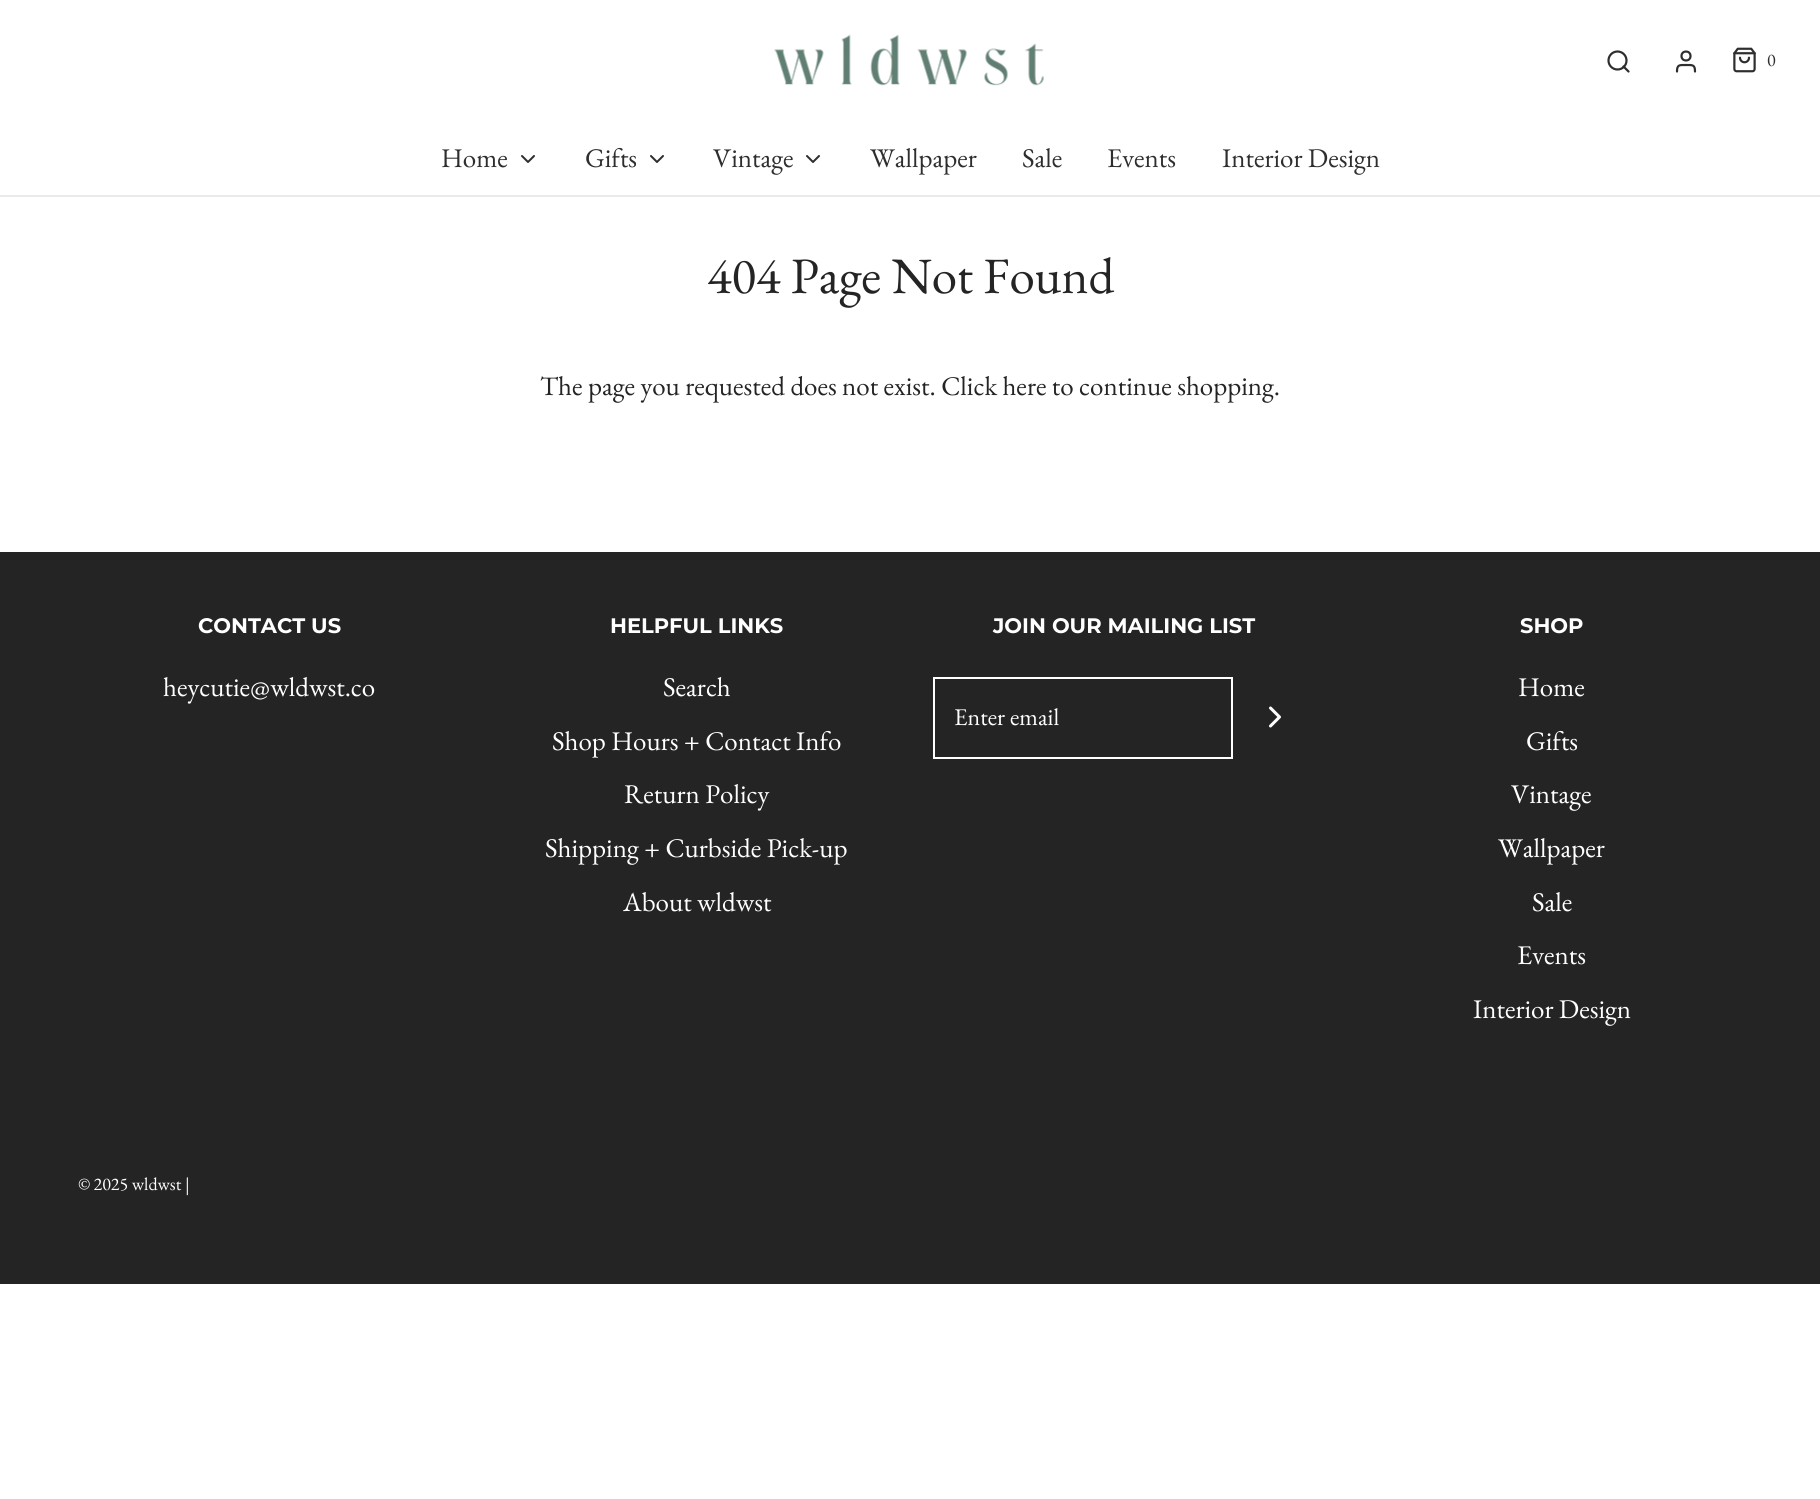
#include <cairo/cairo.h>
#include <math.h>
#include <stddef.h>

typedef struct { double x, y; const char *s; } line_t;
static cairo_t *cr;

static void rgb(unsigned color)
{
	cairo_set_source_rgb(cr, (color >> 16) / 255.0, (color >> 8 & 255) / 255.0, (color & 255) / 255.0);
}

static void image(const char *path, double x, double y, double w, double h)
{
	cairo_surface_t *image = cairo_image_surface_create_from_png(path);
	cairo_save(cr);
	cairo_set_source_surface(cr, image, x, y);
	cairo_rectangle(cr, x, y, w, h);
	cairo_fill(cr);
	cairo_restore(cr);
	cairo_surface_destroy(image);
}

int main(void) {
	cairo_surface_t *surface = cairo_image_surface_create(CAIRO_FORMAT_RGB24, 1820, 1499);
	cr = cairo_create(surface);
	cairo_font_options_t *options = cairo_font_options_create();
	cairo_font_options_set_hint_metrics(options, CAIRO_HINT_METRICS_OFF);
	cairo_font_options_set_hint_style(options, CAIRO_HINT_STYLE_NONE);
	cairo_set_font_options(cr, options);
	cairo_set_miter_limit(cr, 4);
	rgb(0xffffff);
	cairo_paint(cr);
	rgb(0xeaeaea);
	cairo_rectangle(cr, 0, 195, 1820, 2);
	cairo_fill(cr);
	image("img/1.png", 774, 34, 270, 52);
	cairo_arc(cr, 1617.5, 60.5, 9, 0, 2 * M_PI);
	rgb(0x2e2e2e);
	cairo_set_line_width(cr, 2.2);
	cairo_stroke(cr);
	cairo_new_path(cr);
	cairo_move_to(cr, 1628.5, 71.5);
	cairo_line_to(cr, 1623.5, 66.5);
	cairo_set_line_cap(cr, CAIRO_LINE_CAP_ROUND);
	cairo_set_line_join(cr, CAIRO_LINE_JOIN_ROUND);
	cairo_stroke(cr);
	cairo_new_path(cr);
	cairo_move_to(cr, 1695, 71.5);
	cairo_curve_to(cr, 1695, 64.5, 1692.5, 65, 1686, 65);
	cairo_curve_to(cr, 1679.5, 65, 1677, 64.5, 1677, 71.5);
	cairo_stroke(cr);
	cairo_arc(cr, 1686, 56, 4.5, 0, 2 * M_PI);
	cairo_set_line_cap(cr, CAIRO_LINE_CAP_BUTT);
	cairo_set_line_join(cr, CAIRO_LINE_JOIN_MITER);
	cairo_stroke(cr);
	image("img/2.png", 1733, 47, 23, 26);
	cairo_new_path(cr);
	cairo_move_to(cr, 522, 156);
	cairo_line_to(cr, 528, 162);
	cairo_line_to(cr, 534, 156);
	cairo_set_line_width(cr, 2);
	cairo_set_line_cap(cr, CAIRO_LINE_CAP_ROUND);
	cairo_set_line_join(cr, CAIRO_LINE_JOIN_ROUND);
	cairo_stroke(cr);
	cairo_new_path(cr);
	cairo_move_to(cr, 651, 156);
	cairo_line_to(cr, 657, 162);
	cairo_line_to(cr, 663, 156);
	cairo_stroke(cr);
	cairo_new_path(cr);
	cairo_move_to(cr, 807, 156);
	cairo_line_to(cr, 813, 162);
	cairo_line_to(cr, 819, 156);
	cairo_stroke(cr);
	rgb(0x242424);
	cairo_rectangle(cr, 0, 552, 1820, 732);
	cairo_fill(cr);
	cairo_rectangle(cr, 934, 678, 298, 80);
	rgb(0xffffff);
	cairo_set_line_cap(cr, CAIRO_LINE_CAP_BUTT);
	cairo_set_line_join(cr, CAIRO_LINE_JOIN_MITER);
	cairo_stroke(cr);
	cairo_new_path(cr);
	cairo_move_to(cr, 1270.5, 726);
	cairo_line_to(cr, 1279.5, 717);
	cairo_line_to(cr, 1270.5, 708);
	cairo_set_line_width(cr, 3);
	cairo_set_line_cap(cr, CAIRO_LINE_CAP_ROUND);
	cairo_set_line_join(cr, CAIRO_LINE_JOIN_ROUND);
	cairo_stroke(cr);
	cairo_select_font_face(cr, "EB Garamond", CAIRO_FONT_SLANT_NORMAL, CAIRO_FONT_WEIGHT_NORMAL);
	cairo_set_font_size(cr, 18);
	rgb(0x2e2e2e);
	cairo_move_to(cr, 1767, 66);
	cairo_show_text(cr, "0");
	cairo_set_font_size(cr, 27);
	{
		static const line_t items[] = {
			{441, 167, "Home"},
			{585, 167, "Gifts"},
			{713, 167, "Vintage"},
			{870, 167, "Wallpaper"},
			{1022, 167, "Sale"},
			{1107, 167, "Events"},
			{1222, 167, "Interior Design"},
		};
		for (size_t i = 0; i < sizeof items / sizeof *items; i++) {
			cairo_move_to(cr, items[i].x, items[i].y);
			cairo_show_text(cr, items[i].s);
		}
	}
	cairo_set_font_size(cr, 51);
	rgb(0x242424);
	cairo_move_to(cr, 707, 293);
	cairo_show_text(cr, "404 Page Not Found");
	cairo_set_font_size(cr, 27);
	cairo_move_to(cr, 540, 395);
	cairo_show_text(cr, "The page you requested does not exist. Click here to continue shopping.");
	cairo_select_font_face(cr, "Montserrat", CAIRO_FONT_SLANT_NORMAL, CAIRO_FONT_WEIGHT_BOLD);
	cairo_set_font_size(cr, 21);
	rgb(0xffffff);
	cairo_move_to(cr, 198, 633);
	cairo_show_text(cr, "CONTACT US");
	cairo_select_font_face(cr, "EB Garamond", CAIRO_FONT_SLANT_NORMAL, CAIRO_FONT_WEIGHT_NORMAL);
	cairo_set_font_size(cr, 27);
	cairo_move_to(cr, 163, 696);
	cairo_show_text(cr, "heycutie@wldwst.co");
	cairo_select_font_face(cr, "Montserrat", CAIRO_FONT_SLANT_NORMAL, CAIRO_FONT_WEIGHT_BOLD);
	cairo_set_font_size(cr, 21);
	cairo_move_to(cr, 610, 633);
	cairo_show_text(cr, "HELPFUL LINKS");
	cairo_select_font_face(cr, "EB Garamond", CAIRO_FONT_SLANT_NORMAL, CAIRO_FONT_WEIGHT_NORMAL);
	cairo_set_font_size(cr, 27);
	{
		static const line_t items[] = {
			{663, 696, "Search"},
			{552, 750, "Shop Hours + Contact Info"},
			{624, 803, "Return Policy"},
			{545, 857, "Shipping + Curbside Pick-up"},
			{623, 911, "About wldwst"},
		};
		for (size_t i = 0; i < sizeof items / sizeof *items; i++) {
			cairo_move_to(cr, items[i].x, items[i].y);
			cairo_show_text(cr, items[i].s);
		}
	}
	cairo_select_font_face(cr, "Montserrat", CAIRO_FONT_SLANT_NORMAL, CAIRO_FONT_WEIGHT_BOLD);
	cairo_set_font_size(cr, 21);
	cairo_move_to(cr, 993, 633);
	cairo_show_text(cr, "JOIN OUR MAILING LIST");
	cairo_select_font_face(cr, "EB Garamond", CAIRO_FONT_SLANT_NORMAL, CAIRO_FONT_WEIGHT_NORMAL);
	cairo_set_font_size(cr, 24);
	cairo_move_to(cr, 954, 725);
	cairo_show_text(cr, "Enter email");
	cairo_select_font_face(cr, "Montserrat", CAIRO_FONT_SLANT_NORMAL, CAIRO_FONT_WEIGHT_BOLD);
	cairo_set_font_size(cr, 21);
	cairo_move_to(cr, 1520, 633);
	cairo_show_text(cr, "SHOP");
	cairo_select_font_face(cr, "EB Garamond", CAIRO_FONT_SLANT_NORMAL, CAIRO_FONT_WEIGHT_NORMAL);
	cairo_set_font_size(cr, 27);
	{
		static const line_t items[] = {
			{1518, 696, "Home"},
			{1526, 750, "Gifts"},
			{1511, 803, "Vintage"},
			{1498, 857, "Wallpaper"},
			{1532, 911, "Sale"},
			{1517, 964, "Events"},
			{1473, 1018, "Interior Design"},
		};
		for (size_t i = 0; i < sizeof items / sizeof *items; i++) {
			cairo_move_to(cr, items[i].x, items[i].y);
			cairo_show_text(cr, items[i].s);
		}
	}
	cairo_set_font_size(cr, 18);
	cairo_move_to(cr, 78, 1190);
	cairo_show_text(cr, "© 2025 wldwst |");
	cairo_surface_write_to_png(surface, "page.png");
	cairo_font_options_destroy(options);
	cairo_destroy(cr);
	cairo_surface_destroy(surface);
	return 0;
}
